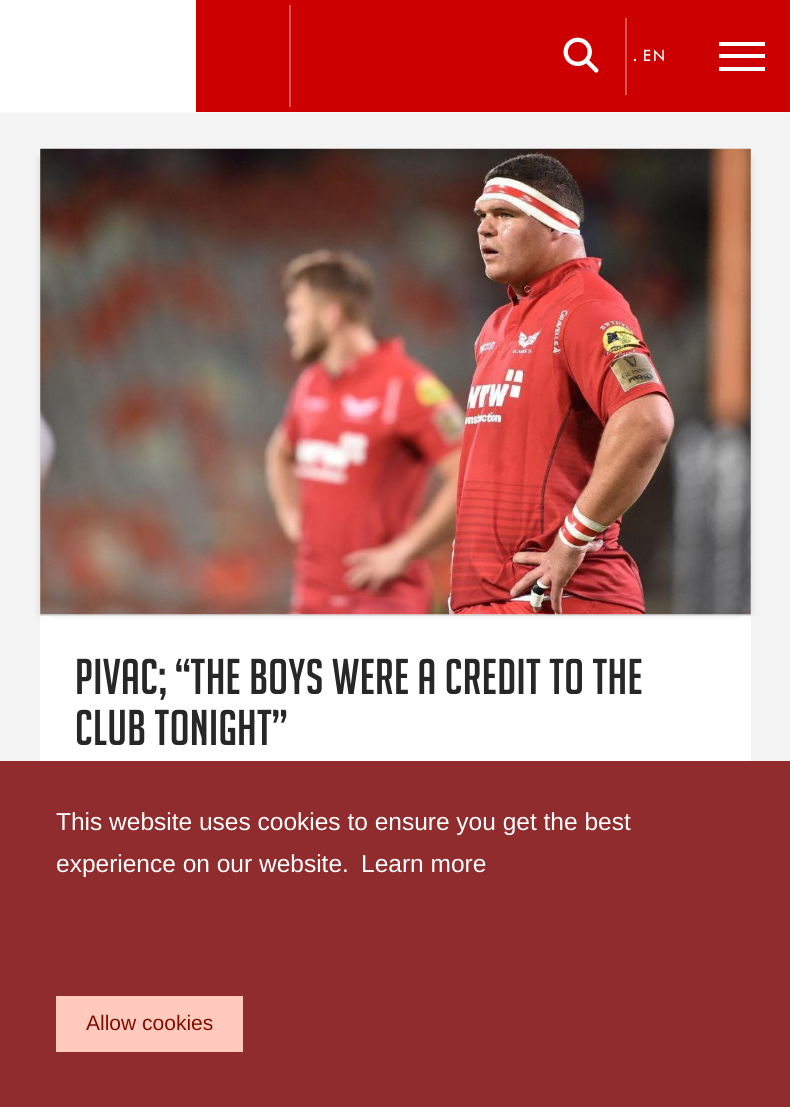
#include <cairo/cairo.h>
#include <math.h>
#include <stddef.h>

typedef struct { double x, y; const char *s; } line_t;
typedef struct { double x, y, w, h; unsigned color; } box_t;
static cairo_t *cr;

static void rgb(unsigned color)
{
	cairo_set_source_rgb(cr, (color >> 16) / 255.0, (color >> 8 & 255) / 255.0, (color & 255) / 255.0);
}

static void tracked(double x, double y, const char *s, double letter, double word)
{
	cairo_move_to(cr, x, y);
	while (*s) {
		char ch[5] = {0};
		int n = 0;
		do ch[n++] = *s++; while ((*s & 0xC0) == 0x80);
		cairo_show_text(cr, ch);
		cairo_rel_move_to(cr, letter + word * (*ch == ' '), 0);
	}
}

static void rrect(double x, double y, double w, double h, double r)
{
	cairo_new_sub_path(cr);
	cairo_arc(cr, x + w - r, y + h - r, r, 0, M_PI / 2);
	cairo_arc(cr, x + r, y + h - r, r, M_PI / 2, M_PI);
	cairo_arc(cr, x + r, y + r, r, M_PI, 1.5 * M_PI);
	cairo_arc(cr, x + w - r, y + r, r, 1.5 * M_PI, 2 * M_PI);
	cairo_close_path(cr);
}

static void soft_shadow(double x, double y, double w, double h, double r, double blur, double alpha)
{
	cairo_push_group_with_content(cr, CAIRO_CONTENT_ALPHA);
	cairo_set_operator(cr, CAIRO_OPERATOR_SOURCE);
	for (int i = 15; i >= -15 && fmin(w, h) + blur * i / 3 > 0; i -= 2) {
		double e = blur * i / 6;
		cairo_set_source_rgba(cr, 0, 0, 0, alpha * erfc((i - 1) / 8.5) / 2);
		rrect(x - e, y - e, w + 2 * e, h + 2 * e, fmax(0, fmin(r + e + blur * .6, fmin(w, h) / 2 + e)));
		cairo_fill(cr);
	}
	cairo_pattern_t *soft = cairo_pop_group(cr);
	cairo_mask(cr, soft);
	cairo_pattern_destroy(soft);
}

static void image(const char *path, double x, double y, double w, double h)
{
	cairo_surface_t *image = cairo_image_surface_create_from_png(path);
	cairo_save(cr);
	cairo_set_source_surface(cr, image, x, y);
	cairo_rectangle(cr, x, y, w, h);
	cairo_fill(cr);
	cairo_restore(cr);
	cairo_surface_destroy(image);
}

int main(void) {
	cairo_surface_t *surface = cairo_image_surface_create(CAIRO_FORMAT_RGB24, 790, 1107);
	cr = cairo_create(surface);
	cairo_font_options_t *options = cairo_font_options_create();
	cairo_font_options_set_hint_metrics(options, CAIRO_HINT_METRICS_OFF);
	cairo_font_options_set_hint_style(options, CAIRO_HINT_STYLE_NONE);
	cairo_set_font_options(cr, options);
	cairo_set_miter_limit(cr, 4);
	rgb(0xf3f3f3);
	cairo_paint(cr);
	{
		static const box_t items[] = {
			{196, 0, 594, 112, 0xcc0000},
			{0, 0, 196, 112, 0xffffff},
			{289, 5, 2, 102, 0xdc5252},
			{625, 18, 2, 77, 0xdc5252},
		};
		for (size_t i = 0; i < sizeof items / sizeof *items; i++) {
			rgb(items[i].color);
			cairo_rectangle(cr, items[i].x, items[i].y, items[i].w, items[i].h);
			cairo_fill(cr);
		}
	}
	image("img/1.png", 563, 37, 36, 36);
	{
		static const box_t items[] = {
			{719, 42, 46, 4, 0xffffff},
			{719, 54, 46, 4, 0xffffff},
			{719, 67, 46, 4, 0xffffff},
			{0, 112, 790, 2, 0xf7f7f7},
			{40, 616, 711, 145, 0xffffff},
		};
		for (size_t i = 0; i < sizeof items / sizeof *items; i++) {
			rgb(items[i].color);
			cairo_rectangle(cr, items[i].x, items[i].y, items[i].w, items[i].h);
			cairo_fill(cr);
		}
	}
	rgb(0x000000);
	soft_shadow(40, 159, 697, 454, 0, 3.5, 0.13);
	soft_shadow(54, 159, 697, 454, 0, 3.5, 0.13);
	rgb(0xdddddd);
	cairo_rectangle(cr, 40, 614, 711, 2);
	cairo_fill(cr);
	image("img/2.png", 40, 148, 711, 467);
	rgb(0x902c2d);
	cairo_rectangle(cr, 0, 761, 790, 346);
	cairo_fill(cr);
	rgb(0xffcabd);
	cairo_rectangle(cr, 56, 996, 187, 56);
	cairo_fill(cr);
	cairo_select_font_face(cr, "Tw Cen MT", CAIRO_FONT_SLANT_NORMAL, CAIRO_FONT_WEIGHT_NORMAL);
	cairo_set_font_size(cr, 18);
	rgb(0xffffff);
	tracked(633, 61, ".", 2, 0);
	tracked(643, 61, "EN", 2, 0);
	cairo_select_font_face(cr, "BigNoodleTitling", CAIRO_FONT_SLANT_NORMAL, CAIRO_FONT_WEIGHT_NORMAL);
	cairo_set_font_size(cr, 49);
	rgb(0x272727);
	tracked(75, 694, "Pivac; “The Boys Were A Credit To The", 0.35, 0);
	tracked(75, 745, "Club Tonight”", 0.35, 0);
	cairo_select_font_face(cr, "Liberation Sans", CAIRO_FONT_SLANT_NORMAL, CAIRO_FONT_WEIGHT_NORMAL);
	cairo_set_font_size(cr, 24.5);
	rgb(0xffffff);
	{
		static const line_t items[] = {
			{56, 830, "This website uses cookies to ensure you get the best"},
			{56, 872, "experience on our website."},
			{361, 872, "Learn more"},
		};
		for (size_t i = 0; i < sizeof items / sizeof *items; i++) {
			cairo_move_to(cr, items[i].x, items[i].y);
			cairo_show_text(cr, items[i].s);
		}
	}
	cairo_set_font_size(cr, 21);
	rgb(0x800e01);
	cairo_move_to(cr, 86, 1030);
	cairo_show_text(cr, "Allow cookies");
	cairo_surface_write_to_png(surface, "page.png");
	cairo_font_options_destroy(options);
	cairo_destroy(cr);
	cairo_surface_destroy(surface);
	return 0;
}
